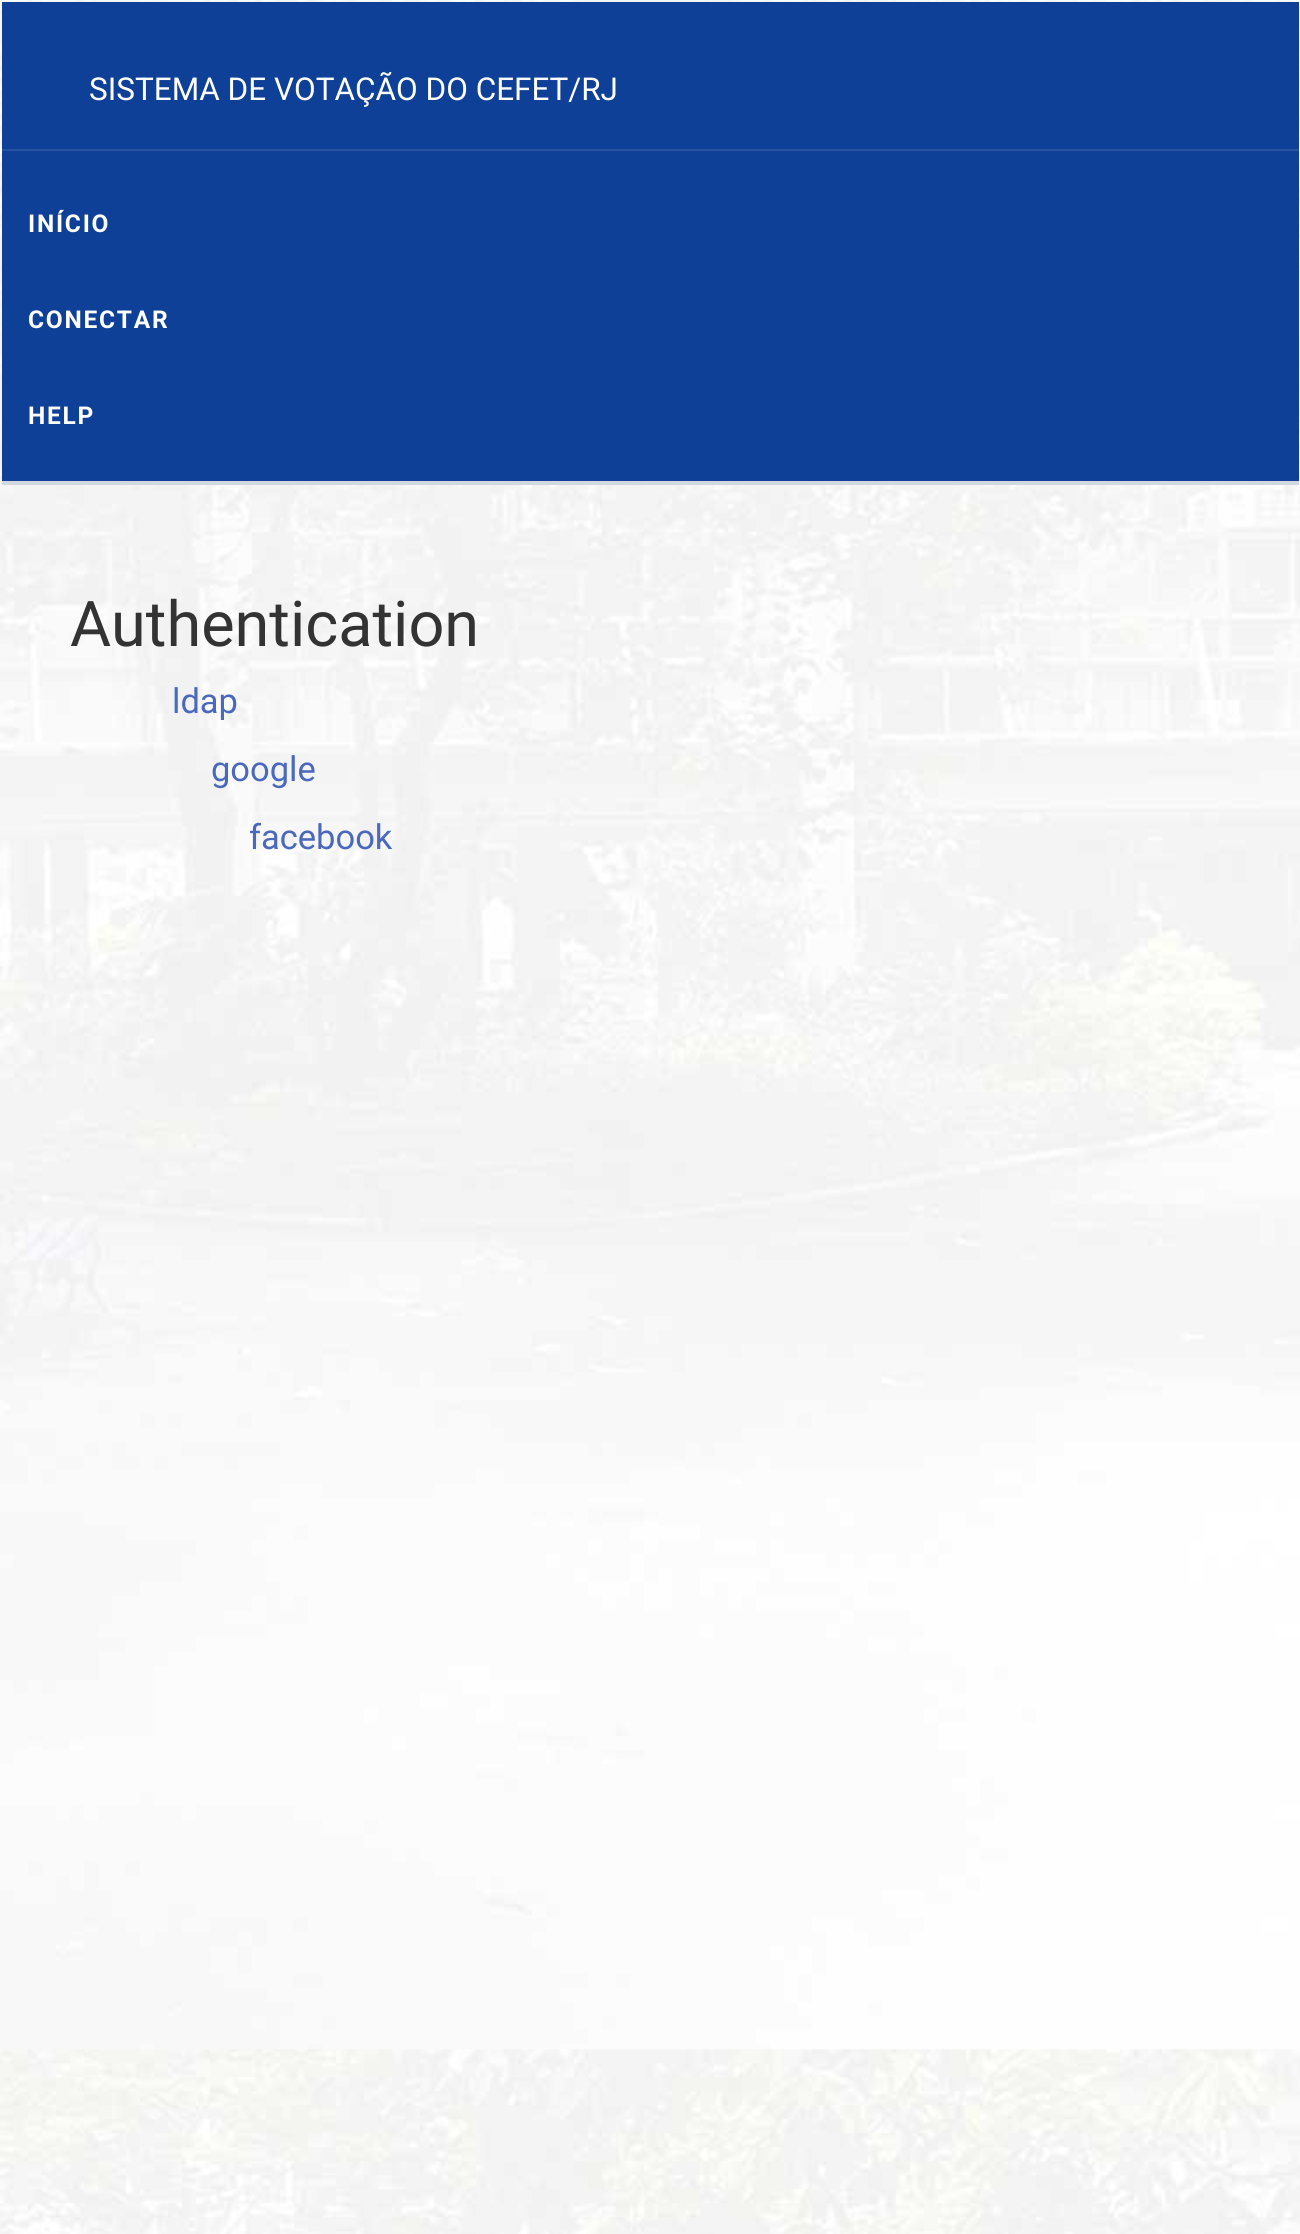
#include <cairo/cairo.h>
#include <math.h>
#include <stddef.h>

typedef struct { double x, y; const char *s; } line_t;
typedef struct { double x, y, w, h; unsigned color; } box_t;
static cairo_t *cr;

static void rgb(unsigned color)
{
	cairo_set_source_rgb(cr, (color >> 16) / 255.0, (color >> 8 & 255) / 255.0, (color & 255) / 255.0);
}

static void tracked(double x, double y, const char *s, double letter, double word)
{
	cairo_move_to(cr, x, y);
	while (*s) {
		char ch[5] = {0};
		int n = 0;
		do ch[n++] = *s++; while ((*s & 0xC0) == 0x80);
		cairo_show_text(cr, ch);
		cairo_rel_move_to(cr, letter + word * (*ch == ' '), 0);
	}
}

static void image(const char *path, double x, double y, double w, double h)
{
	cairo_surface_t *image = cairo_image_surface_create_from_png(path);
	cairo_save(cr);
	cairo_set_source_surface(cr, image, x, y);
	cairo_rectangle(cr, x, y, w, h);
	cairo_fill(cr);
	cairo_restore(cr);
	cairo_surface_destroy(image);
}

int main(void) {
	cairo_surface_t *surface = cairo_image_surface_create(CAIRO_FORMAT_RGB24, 1300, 2234);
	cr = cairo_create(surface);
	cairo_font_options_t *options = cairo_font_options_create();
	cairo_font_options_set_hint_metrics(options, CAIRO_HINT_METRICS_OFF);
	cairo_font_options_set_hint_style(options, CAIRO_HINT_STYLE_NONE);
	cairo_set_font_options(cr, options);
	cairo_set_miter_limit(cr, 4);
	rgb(0xffffff);
	cairo_paint(cr);
	image("img/1.png", 0, 0, 1300, 2234);
	{
		static const box_t items[] = {
			{2, 2, 1297, 479, 0x0f4098},
			{2, 481, 1297, 4, 0xd1d8e0},
			{2, 149, 1297, 2, 0x2753a2},
		};
		for (size_t i = 0; i < sizeof items / sizeof *items; i++) {
			rgb(items[i].color);
			cairo_rectangle(cr, items[i].x, items[i].y, items[i].w, items[i].h);
			cairo_fill(cr);
		}
	}
	cairo_select_font_face(cr, "Roboto", CAIRO_FONT_SLANT_NORMAL, CAIRO_FONT_WEIGHT_NORMAL);
	cairo_set_font_size(cr, 31.5);
	rgb(0xffffff);
	cairo_move_to(cr, 89, 100);
	cairo_show_text(cr, "SISTEMA DE VOTAÇÃO DO CEFET/RJ");
	cairo_select_font_face(cr, "Roboto", CAIRO_FONT_SLANT_NORMAL, CAIRO_FONT_WEIGHT_BOLD);
	cairo_set_font_size(cr, 24.5);
	{
		static const line_t items[] = {
			{28, 232, "INÍCIO"},
			{28, 328, "CONECTAR"},
			{28, 424, "HELP"},
		};
		for (size_t i = 0; i < sizeof items / sizeof *items; i++) {
			tracked(items[i].x, items[i].y, items[i].s, 1.75, 0);
		}
	}
	cairo_select_font_face(cr, "Roboto", CAIRO_FONT_SLANT_NORMAL, CAIRO_FONT_WEIGHT_NORMAL);
	cairo_set_font_size(cr, 63);
	rgb(0x333333);
	cairo_move_to(cr, 70, 646);
	cairo_show_text(cr, "Authentication");
	cairo_set_font_size(cr, 34.5);
	rgb(0x4a69bd);
	{
		static const line_t items[] = {
			{172, 713, "ldap"},
			{211, 781, "google"},
			{249, 849, "facebook"},
		};
		for (size_t i = 0; i < sizeof items / sizeof *items; i++) {
			cairo_move_to(cr, items[i].x, items[i].y);
			cairo_show_text(cr, items[i].s);
		}
	}
	cairo_surface_write_to_png(surface, "page.png");
	cairo_font_options_destroy(options);
	cairo_destroy(cr);
	cairo_surface_destroy(surface);
	return 0;
}
